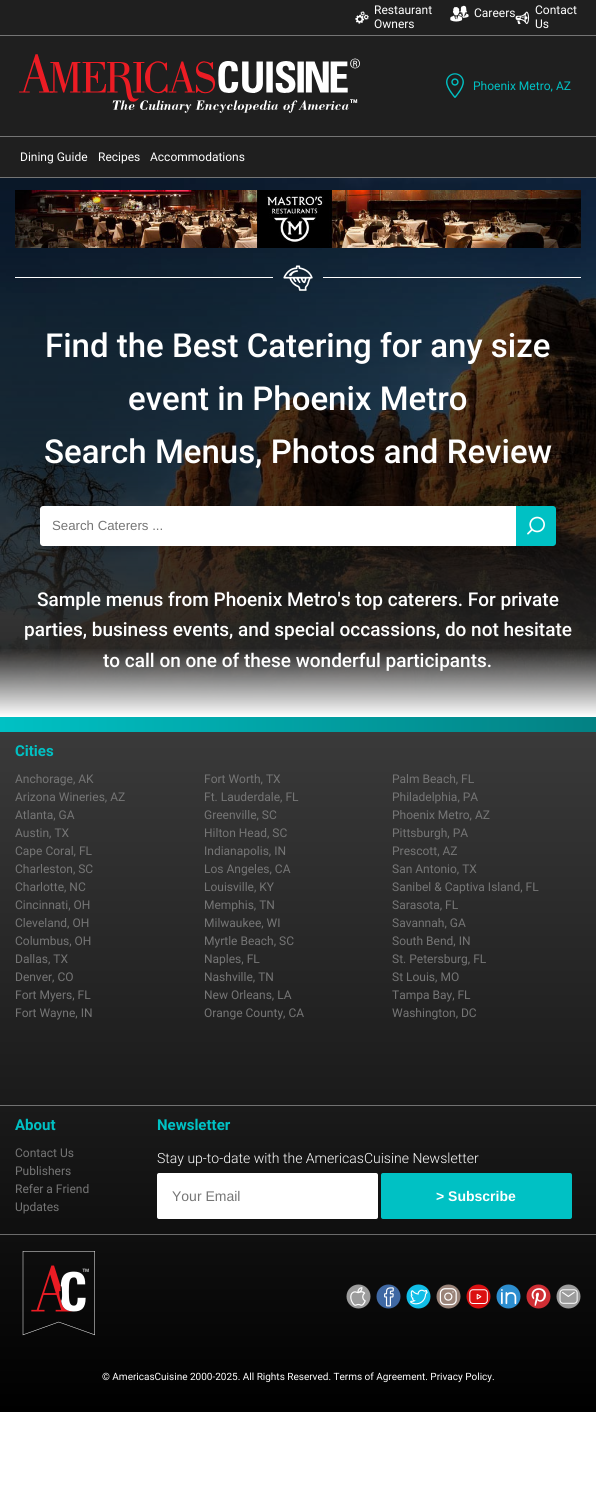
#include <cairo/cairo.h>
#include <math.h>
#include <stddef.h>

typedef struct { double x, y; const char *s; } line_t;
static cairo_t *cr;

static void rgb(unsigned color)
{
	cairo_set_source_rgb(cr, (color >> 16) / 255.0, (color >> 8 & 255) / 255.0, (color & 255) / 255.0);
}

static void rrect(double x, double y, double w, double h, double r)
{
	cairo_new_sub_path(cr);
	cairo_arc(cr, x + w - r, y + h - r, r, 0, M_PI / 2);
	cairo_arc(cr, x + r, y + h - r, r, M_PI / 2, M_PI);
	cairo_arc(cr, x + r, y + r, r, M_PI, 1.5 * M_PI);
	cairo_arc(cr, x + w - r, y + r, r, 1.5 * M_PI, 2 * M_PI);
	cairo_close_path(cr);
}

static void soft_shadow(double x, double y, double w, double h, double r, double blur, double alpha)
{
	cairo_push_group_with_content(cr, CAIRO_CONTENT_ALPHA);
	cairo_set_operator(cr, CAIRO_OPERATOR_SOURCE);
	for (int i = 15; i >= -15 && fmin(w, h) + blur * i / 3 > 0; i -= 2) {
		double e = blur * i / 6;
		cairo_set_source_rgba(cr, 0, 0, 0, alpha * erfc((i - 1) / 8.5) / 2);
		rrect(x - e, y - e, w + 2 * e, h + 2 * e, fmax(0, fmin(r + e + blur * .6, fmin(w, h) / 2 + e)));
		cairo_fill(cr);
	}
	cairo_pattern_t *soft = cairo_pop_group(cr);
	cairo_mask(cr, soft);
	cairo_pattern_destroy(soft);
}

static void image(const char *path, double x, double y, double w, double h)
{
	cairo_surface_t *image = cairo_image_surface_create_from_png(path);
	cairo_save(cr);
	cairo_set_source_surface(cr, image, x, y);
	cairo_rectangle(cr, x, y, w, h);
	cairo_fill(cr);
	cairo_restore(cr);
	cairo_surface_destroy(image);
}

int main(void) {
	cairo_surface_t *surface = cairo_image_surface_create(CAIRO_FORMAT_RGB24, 596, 1506);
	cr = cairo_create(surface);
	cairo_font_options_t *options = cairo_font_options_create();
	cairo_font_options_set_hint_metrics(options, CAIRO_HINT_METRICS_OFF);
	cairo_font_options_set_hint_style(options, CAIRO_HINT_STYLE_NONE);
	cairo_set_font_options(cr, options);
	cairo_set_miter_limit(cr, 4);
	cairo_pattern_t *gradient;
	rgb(0xffffff);
	cairo_paint(cr);
	rgb(0x1f1f1f);
	cairo_rectangle(cr, 0, 0, 596, 35);
	cairo_fill(cr);
	rgb(0x747474);
	cairo_rectangle(cr, 0, 35, 596, 1);
	cairo_fill(cr);
	image("img/1.png", 355, 11, 14, 13);
	image("img/2.png", 450, 5, 19, 17);
	image("img/3.png", 515, 11, 15, 14);
	rgb(0x1f1f1f);
	cairo_rectangle(cr, 0, 36, 596, 100);
	cairo_fill(cr);
	rgb(0x747474);
	cairo_rectangle(cr, 0, 136, 596, 1);
	cairo_fill(cr);
	image("img/4.png", 19, 54, 341, 59);
	image("img/5.png", 446, 73, 18, 25);
	rgb(0x1f1f1f);
	cairo_rectangle(cr, 0, 137, 596, 40);
	cairo_fill(cr);
	rgb(0x747474);
	cairo_rectangle(cr, 0, 177, 596, 1);
	cairo_fill(cr);
	image("img/6.png", 0, 178, 596, 539);
	image("img/7.png", 15, 190, 566, 58);
	rgb(0xffffff);
	cairo_rectangle(cr, 15, 277, 258, 1);
	cairo_fill(cr);
	image("img/8.png", 283, 265, 30, 26);
	cairo_rectangle(cr, 323, 277, 258, 1);
	cairo_fill(cr);
	rgb(0x000000);
	soft_shadow(44, 510, 476, 40, 3, 3.5, 0.17);
	rgb(0xffffff);
	cairo_new_path(cr);
	cairo_move_to(cr, 43, 506);
	cairo_line_to(cr, 516, 506);
	cairo_line_to(cr, 516, 546);
	cairo_line_to(cr, 43, 546);
	cairo_curve_to(cr, 41.5, 546, 40, 544.5, 40, 543);
	cairo_line_to(cr, 40, 509);
	cairo_curve_to(cr, 40, 507.5, 41.5, 506, 43, 506);
	cairo_close_path(cr);
	cairo_fill(cr);
	rgb(0x00c1c4);
	cairo_new_path(cr);
	cairo_move_to(cr, 516, 506);
	cairo_line_to(cr, 553, 506);
	cairo_curve_to(cr, 554.5, 506, 556, 507.5, 556, 509);
	cairo_line_to(cr, 556, 543);
	cairo_curve_to(cr, 556, 544.5, 554.5, 546, 553, 546);
	cairo_line_to(cr, 516, 546);
	cairo_close_path(cr);
	cairo_fill(cr);
	image("img/9.png", 527, 516, 18, 19);
	gradient = cairo_pattern_create_linear(0, 1065, 596, 1065);
	cairo_pattern_add_color_stop_rgba(gradient, 0, 0, 0.757, 0.769, 1);
	cairo_pattern_add_color_stop_rgba(gradient, 1, 0.012, 0.506, 0.514, 1);
	cairo_set_source(cr, gradient);
	cairo_pattern_destroy(gradient);
	cairo_rectangle(cr, 0, 717, 596, 15);
	cairo_fill(cr);
	gradient = cairo_pattern_create_linear(298, 1412, 298, 732);
	cairo_pattern_add_color_stop_rgba(gradient, 0, 0, 0, 0, 1);
	cairo_pattern_add_color_stop_rgba(gradient, 1, 0.227, 0.227, 0.227, 1);
	cairo_set_source(cr, gradient);
	cairo_pattern_destroy(gradient);
	cairo_rectangle(cr, 0, 732, 596, 680);
	cairo_fill(cr);
	rgb(0x717171);
	cairo_rectangle(cr, 0, 1105, 596, 1);
	cairo_fill(cr);
	rgb(0xffffff);
	rrect(157, 1173, 221, 46, 2);
	cairo_fill(cr);
	rgb(0x00c1c4);
	rrect(381, 1173, 191, 46, 2);
	cairo_fill(cr);
	rgb(0x6a6a6a);
	cairo_rectangle(cr, 0, 1234, 596, 1);
	cairo_fill(cr);
	image("img/10.png", 22, 1251, 73, 85);
	image("img/11.png", 346, 1284, 25, 25);
	image("img/12.png", 376, 1284, 25, 25);
	image("img/13.png", 406, 1284, 25, 25);
	image("img/14.png", 436, 1284, 25, 25);
	image("img/15.png", 466, 1284, 25, 25);
	image("img/16.png", 496, 1284, 25, 25);
	image("img/17.png", 526, 1284, 25, 25);
	image("img/18.png", 556, 1284, 25, 25);
	cairo_select_font_face(cr, "Roboto", CAIRO_FONT_SLANT_NORMAL, CAIRO_FONT_WEIGHT_NORMAL);
	cairo_set_font_size(cr, 12);
	rgb(0xffffff);
	{
		static const line_t items[] = {
			{374, 14, "Restaurant"},
			{374, 28, "Owners"},
			{474, 17, "Careers"},
			{535, 14, "Contact"},
			{535, 28, "Us"},
		};
		for (size_t i = 0; i < sizeof items / sizeof *items; i++) {
			cairo_move_to(cr, items[i].x, items[i].y);
			cairo_show_text(cr, items[i].s);
		}
	}
	rgb(0x00c1c4);
	cairo_move_to(cr, 473, 90);
	cairo_show_text(cr, "Phoenix Metro, AZ");
	rgb(0xffffff);
	{
		static const line_t items[] = {
			{20, 161, "Dining Guide"},
			{98, 161, "Recipes"},
			{150, 161, "Accommodations"},
		};
		for (size_t i = 0; i < sizeof items / sizeof *items; i++) {
			cairo_move_to(cr, items[i].x, items[i].y);
			cairo_show_text(cr, items[i].s);
		}
	}
	cairo_select_font_face(cr, "Roboto Medium", CAIRO_FONT_SLANT_NORMAL, CAIRO_FONT_WEIGHT_NORMAL);
	cairo_set_font_size(cr, 33);
	{
		static const line_t items[] = {
			{45, 357, "Find the Best Catering for any size"},
			{128, 410, "event in Phoenix Metro"},
			{44, 463, "Search Menus, Photos and Review"},
		};
		for (size_t i = 0; i < sizeof items / sizeof *items; i++) {
			cairo_move_to(cr, items[i].x, items[i].y);
			cairo_show_text(cr, items[i].s);
		}
	}
	cairo_select_font_face(cr, "Liberation Sans", CAIRO_FONT_SLANT_NORMAL, CAIRO_FONT_WEIGHT_NORMAL);
	cairo_set_font_size(cr, 13.25);
	rgb(0x757575);
	cairo_move_to(cr, 52, 530);
	cairo_show_text(cr, "Search Caterers ...");
	cairo_select_font_face(cr, "Roboto Medium", CAIRO_FONT_SLANT_NORMAL, CAIRO_FONT_WEIGHT_NORMAL);
	cairo_set_font_size(cr, 19);
	rgb(0xffffff);
	{
		static const line_t items[] = {
			{37, 606, "Sample menus from Phoenix Metro's top caterers. For private"},
			{24, 636, "parties, business events, and special occassions, do not hesitate"},
			{103, 667, "to call on one of these wonderful participants."},
		};
		for (size_t i = 0; i < sizeof items / sizeof *items; i++) {
			cairo_move_to(cr, items[i].x, items[i].y);
			cairo_show_text(cr, items[i].s);
		}
	}
	gradient = cairo_pattern_create_linear(298, 648, 298, 717);
	cairo_pattern_add_color_stop_rgba(gradient, 0, 1, 1, 1, 0);
	cairo_pattern_add_color_stop_rgba(gradient, 1, 1, 1, 1, 1);
	cairo_set_source(cr, gradient);
	cairo_pattern_destroy(gradient);
	cairo_rectangle(cr, 0, 649, 596, 68);
	cairo_fill(cr);
	cairo_select_font_face(cr, "Roboto", CAIRO_FONT_SLANT_NORMAL, CAIRO_FONT_WEIGHT_BOLD);
	cairo_set_font_size(cr, 15);
	rgb(0x00c1c4);
	cairo_move_to(cr, 15, 756);
	cairo_show_text(cr, "Cities");
	cairo_select_font_face(cr, "Roboto", CAIRO_FONT_SLANT_NORMAL, CAIRO_FONT_WEIGHT_NORMAL);
	cairo_set_font_size(cr, 12);
	rgb(0x757575);
	{
		static const line_t items[] = {
			{15, 783, "Anchorage, AK"},
			{15, 801, "Arizona Wineries, AZ"},
			{15, 819, "Atlanta, GA"},
			{15, 837, "Austin, TX"},
			{15, 855, "Cape Coral, FL"},
			{15, 873, "Charleston, SC"},
			{15, 891, "Charlotte, NC"},
			{204, 783, "Fort Worth, TX"},
			{204, 801, "Ft. Lauderdale, FL"},
			{204, 819, "Greenville, SC"},
			{204, 837, "Hilton Head, SC"},
			{204, 855, "Indianapolis, IN"},
			{204, 873, "Los Angeles, CA"},
			{204, 891, "Louisville, KY"},
			{392, 783, "Palm Beach, FL"},
			{392, 801, "Philadelphia, PA"},
			{392, 819, "Phoenix Metro, AZ"},
			{392, 837, "Pittsburgh, PA"},
			{392, 855, "Prescott, AZ"},
			{392, 873, "San Antonio, TX"},
			{392, 891, "Sanibel & Captiva Island, FL"},
			{15, 909, "Cincinnati, OH"},
			{15, 927, "Cleveland, OH"},
			{15, 945, "Columbus, OH"},
			{15, 963, "Dallas, TX"},
			{15, 981, "Denver, CO"},
			{15, 999, "Fort Myers, FL"},
			{15, 1017, "Fort Wayne, IN"},
			{204, 909, "Memphis, TN"},
			{204, 927, "Milwaukee, WI"},
			{204, 945, "Myrtle Beach, SC"},
			{204, 963, "Naples, FL"},
			{204, 981, "Nashville, TN"},
			{204, 999, "New Orleans, LA"},
			{204, 1017, "Orange County, CA"},
			{392, 909, "Sarasota, FL"},
			{392, 927, "Savannah, GA"},
			{392, 945, "South Bend, IN"},
			{392, 963, "St. Petersburg, FL"},
			{392, 981, "St Louis, MO"},
			{392, 999, "Tampa Bay, FL"},
			{392, 1017, "Washington, DC"},
		};
		for (size_t i = 0; i < sizeof items / sizeof *items; i++) {
			cairo_move_to(cr, items[i].x, items[i].y);
			cairo_show_text(cr, items[i].s);
		}
	}
	cairo_select_font_face(cr, "Roboto", CAIRO_FONT_SLANT_NORMAL, CAIRO_FONT_WEIGHT_BOLD);
	cairo_set_font_size(cr, 15);
	rgb(0x00c1c4);
	cairo_move_to(cr, 15, 1130);
	cairo_show_text(cr, "About");
	cairo_select_font_face(cr, "Roboto", CAIRO_FONT_SLANT_NORMAL, CAIRO_FONT_WEIGHT_NORMAL);
	cairo_set_font_size(cr, 12);
	rgb(0x757575);
	{
		static const line_t items[] = {
			{15, 1157, "Contact Us"},
			{15, 1175, "Publishers"},
			{15, 1193, "Refer a Friend"},
			{15, 1211, "Updates"},
		};
		for (size_t i = 0; i < sizeof items / sizeof *items; i++) {
			cairo_move_to(cr, items[i].x, items[i].y);
			cairo_show_text(cr, items[i].s);
		}
	}
	cairo_select_font_face(cr, "Roboto", CAIRO_FONT_SLANT_NORMAL, CAIRO_FONT_WEIGHT_BOLD);
	cairo_set_font_size(cr, 15);
	rgb(0x00c1c4);
	cairo_move_to(cr, 157, 1130);
	cairo_show_text(cr, "Newsletter");
	cairo_select_font_face(cr, "Roboto Light", CAIRO_FONT_SLANT_NORMAL, CAIRO_FONT_WEIGHT_NORMAL);
	cairo_set_font_size(cr, 14);
	rgb(0xffffff);
	cairo_move_to(cr, 157, 1163);
	cairo_show_text(cr, "Stay up-to-date with the AmericasCuisine Newsletter");
	cairo_select_font_face(cr, "Liberation Sans", CAIRO_FONT_SLANT_NORMAL, CAIRO_FONT_WEIGHT_NORMAL);
	rgb(0x757575);
	cairo_move_to(cr, 172, 1201);
	cairo_show_text(cr, "Your Email");
	cairo_select_font_face(cr, "Liberation Sans", CAIRO_FONT_SLANT_NORMAL, CAIRO_FONT_WEIGHT_BOLD);
	rgb(0xffffff);
	cairo_move_to(cr, 436, 1201);
	cairo_show_text(cr, "> Subscribe");
	cairo_select_font_face(cr, "Roboto", CAIRO_FONT_SLANT_NORMAL, CAIRO_FONT_WEIGHT_NORMAL);
	cairo_set_font_size(cr, 10);
	cairo_move_to(cr, 102, 1380);
	cairo_show_text(cr, "© AmericasCuisine 2000-2025. All Rights Reserved. Terms of Agreement. Privacy Policy.");
	cairo_surface_write_to_png(surface, "page.png");
	cairo_font_options_destroy(options);
	cairo_destroy(cr);
	cairo_surface_destroy(surface);
	return 0;
}
